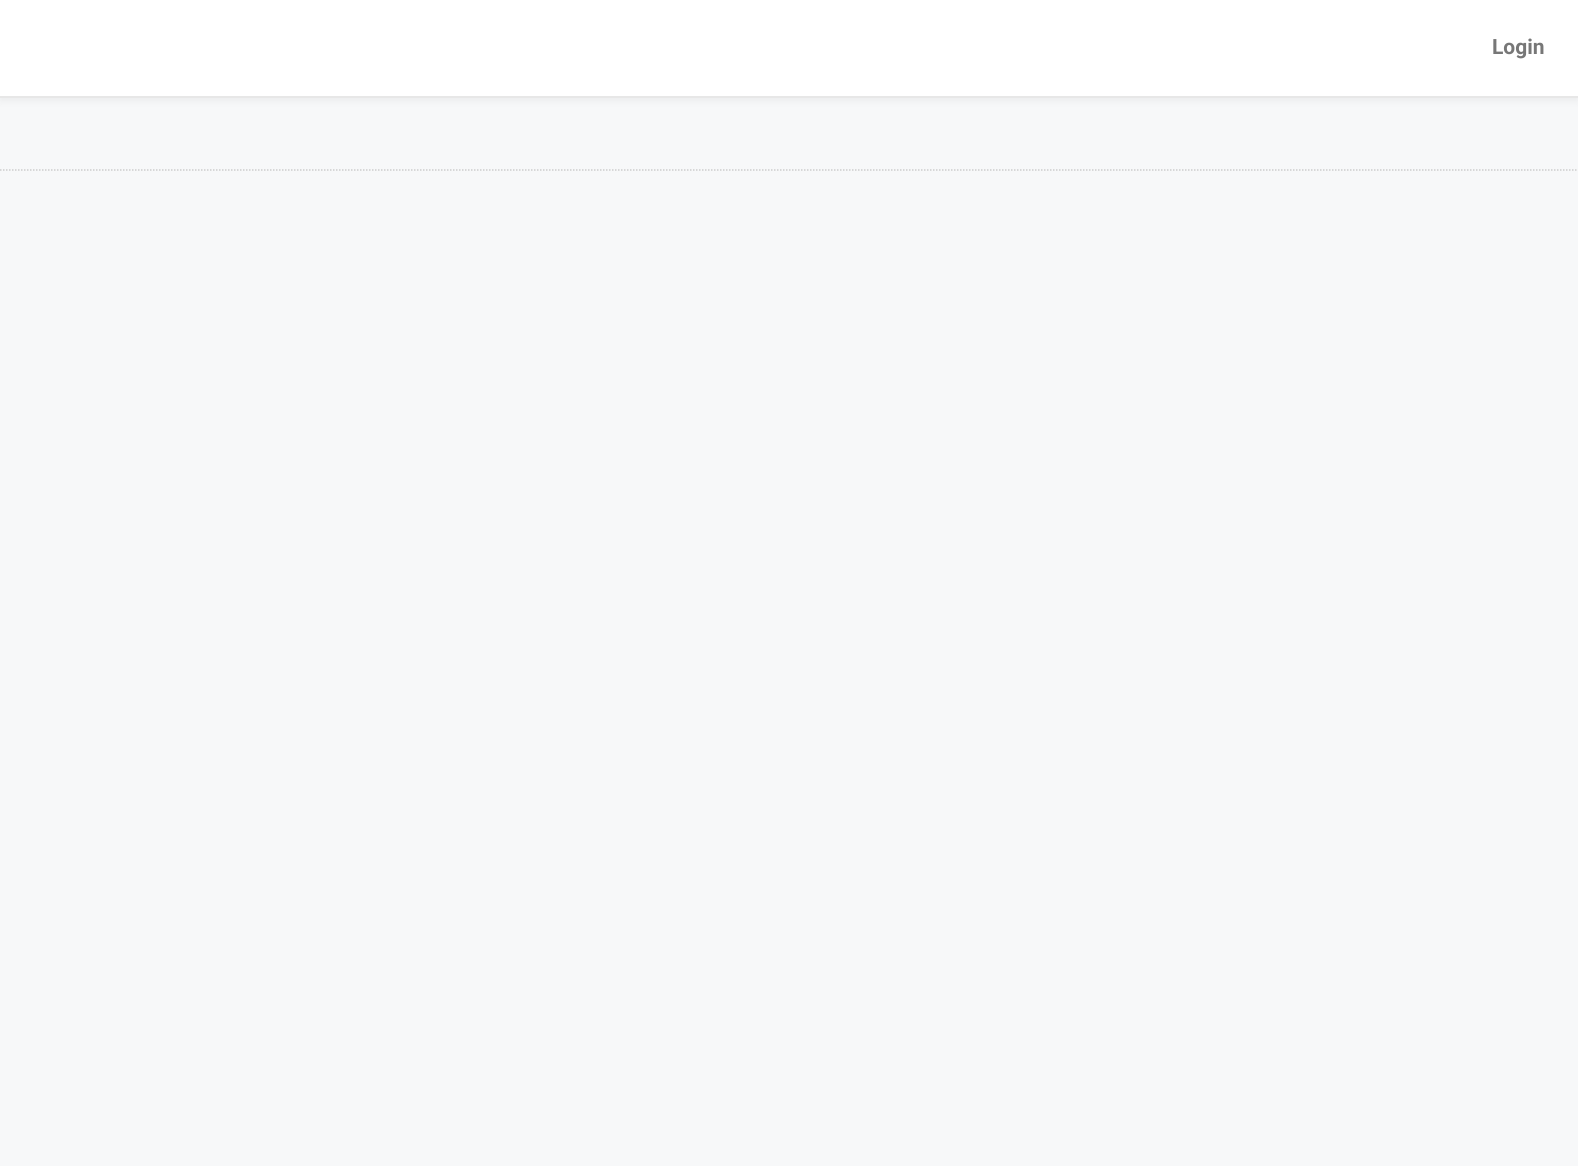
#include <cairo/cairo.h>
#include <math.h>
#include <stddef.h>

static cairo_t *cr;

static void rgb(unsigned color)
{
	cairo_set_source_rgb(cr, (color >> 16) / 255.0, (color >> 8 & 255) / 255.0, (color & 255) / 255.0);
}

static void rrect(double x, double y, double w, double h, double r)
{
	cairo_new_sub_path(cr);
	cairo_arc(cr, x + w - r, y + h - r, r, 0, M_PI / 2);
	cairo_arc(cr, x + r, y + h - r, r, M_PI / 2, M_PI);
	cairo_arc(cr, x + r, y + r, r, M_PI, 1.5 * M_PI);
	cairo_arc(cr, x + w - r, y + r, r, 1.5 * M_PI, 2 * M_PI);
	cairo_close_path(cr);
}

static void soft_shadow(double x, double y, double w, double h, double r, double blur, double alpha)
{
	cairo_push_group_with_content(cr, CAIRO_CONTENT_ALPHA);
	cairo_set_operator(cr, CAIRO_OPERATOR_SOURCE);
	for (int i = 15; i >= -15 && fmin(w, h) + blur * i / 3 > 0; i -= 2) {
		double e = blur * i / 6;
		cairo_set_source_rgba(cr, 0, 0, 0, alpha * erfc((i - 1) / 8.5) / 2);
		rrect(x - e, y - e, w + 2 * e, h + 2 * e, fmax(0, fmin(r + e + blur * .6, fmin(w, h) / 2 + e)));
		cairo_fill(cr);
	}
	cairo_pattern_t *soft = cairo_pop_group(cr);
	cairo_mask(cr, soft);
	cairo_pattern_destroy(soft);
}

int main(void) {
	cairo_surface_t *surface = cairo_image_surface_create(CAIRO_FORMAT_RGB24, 1578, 1166);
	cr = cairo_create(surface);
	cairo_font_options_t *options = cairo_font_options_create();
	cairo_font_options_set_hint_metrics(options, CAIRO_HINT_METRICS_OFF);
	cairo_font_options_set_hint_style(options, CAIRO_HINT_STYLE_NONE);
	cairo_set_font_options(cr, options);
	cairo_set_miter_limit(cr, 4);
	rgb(0xf7f8f9);
	cairo_paint(cr);
	rgb(0x000000);
	soft_shadow(0, 3, 1578, 98, 0, 4, 0.05);
	rgb(0xe7e7e7);
	cairo_rectangle(cr, 0, 96, 1578, 2);
	cairo_fill(cr);
	rgb(0xffffff);
	cairo_rectangle(cr, 0, 0, 1578, 96);
	cairo_fill(cr);
	cairo_new_path(cr);
	cairo_move_to(cr, 0, 170);
	cairo_line_to(cr, 1578, 170);
	rgb(0xcccccc);
	cairo_set_line_width(cr, 1.5);
	cairo_set_dash(cr, (double[]){1.5, 1.5}, 2, 0);
	cairo_stroke(cr);
	cairo_select_font_face(cr, "Roboto", CAIRO_FONT_SLANT_NORMAL, CAIRO_FONT_WEIGHT_BOLD);
	cairo_set_font_size(cr, 21);
	rgb(0x777777);
	cairo_move_to(cr, 1492, 54);
	cairo_show_text(cr, "Login");
	cairo_surface_write_to_png(surface, "page.png");
	cairo_font_options_destroy(options);
	cairo_destroy(cr);
	cairo_surface_destroy(surface);
	return 0;
}
